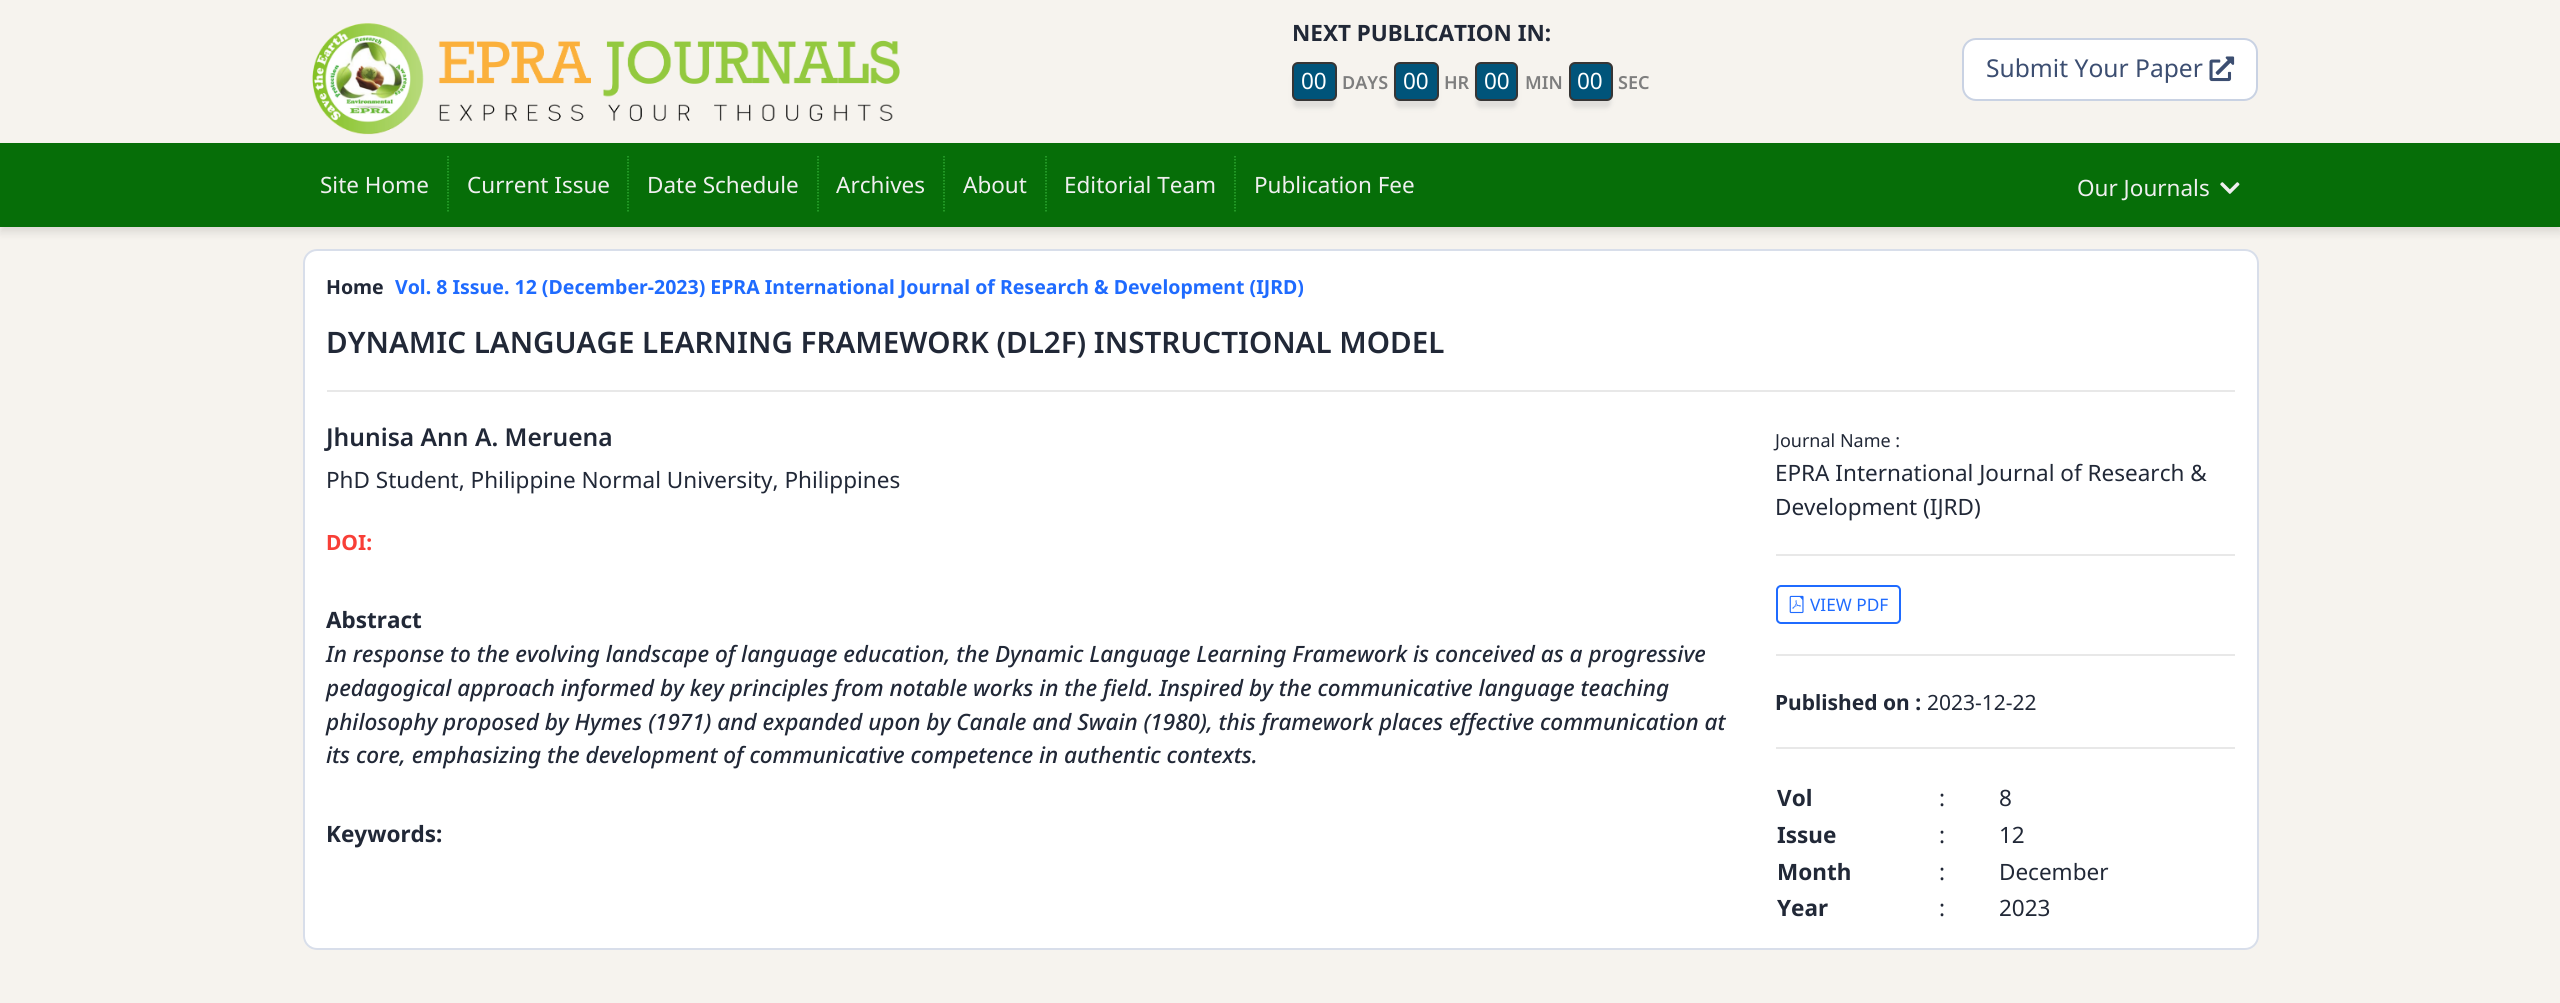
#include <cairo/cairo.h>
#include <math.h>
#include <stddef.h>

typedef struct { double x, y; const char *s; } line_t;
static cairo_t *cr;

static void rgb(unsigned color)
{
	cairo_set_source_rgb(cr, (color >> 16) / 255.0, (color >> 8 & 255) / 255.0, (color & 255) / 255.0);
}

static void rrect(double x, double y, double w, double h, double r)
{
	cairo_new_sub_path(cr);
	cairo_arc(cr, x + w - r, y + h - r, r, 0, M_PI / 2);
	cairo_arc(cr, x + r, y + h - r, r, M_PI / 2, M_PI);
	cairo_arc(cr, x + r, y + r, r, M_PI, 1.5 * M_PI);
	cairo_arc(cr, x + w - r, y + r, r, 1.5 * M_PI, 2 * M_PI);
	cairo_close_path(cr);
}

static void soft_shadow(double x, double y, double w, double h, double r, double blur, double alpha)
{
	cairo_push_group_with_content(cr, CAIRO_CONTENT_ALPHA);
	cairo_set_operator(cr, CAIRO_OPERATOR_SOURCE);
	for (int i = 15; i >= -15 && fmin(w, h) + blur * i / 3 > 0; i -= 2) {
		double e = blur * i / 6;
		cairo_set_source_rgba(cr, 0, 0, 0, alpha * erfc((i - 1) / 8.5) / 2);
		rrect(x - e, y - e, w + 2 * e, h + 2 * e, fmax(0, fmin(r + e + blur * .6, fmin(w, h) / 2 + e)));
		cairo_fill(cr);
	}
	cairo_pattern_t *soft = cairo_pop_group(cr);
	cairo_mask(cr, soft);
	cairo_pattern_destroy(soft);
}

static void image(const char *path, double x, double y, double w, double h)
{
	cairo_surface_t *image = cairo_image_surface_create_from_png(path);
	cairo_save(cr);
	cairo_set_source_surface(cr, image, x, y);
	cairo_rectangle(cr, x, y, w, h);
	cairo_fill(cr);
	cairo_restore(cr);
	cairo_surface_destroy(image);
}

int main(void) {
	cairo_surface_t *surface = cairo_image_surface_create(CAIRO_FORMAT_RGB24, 2560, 1003);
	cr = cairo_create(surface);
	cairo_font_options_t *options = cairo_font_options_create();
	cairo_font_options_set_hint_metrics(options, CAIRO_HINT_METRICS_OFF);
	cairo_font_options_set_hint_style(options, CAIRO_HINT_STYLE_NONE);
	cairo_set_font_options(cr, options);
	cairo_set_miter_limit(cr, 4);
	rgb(0xf6f3ee);
	cairo_paint(cr);
	image("img/1.png", 312, 23, 588, 112);
	rgb(0xbfbfbf);
	soft_shadow(1293, 72, 42, 36, 5, 2, 0.41);
	rgb(0x00547a);
	rrect(1293, 63, 43, 37, 5);
	cairo_fill_preserve(cr);
	rgb(0x363535);
	cairo_stroke(cr);
	rgb(0xbfbfbf);
	soft_shadow(1395, 72, 42, 36, 5, 2, 0.41);
	rgb(0x00547a);
	rrect(1395, 63, 43, 37, 5);
	cairo_fill_preserve(cr);
	rgb(0x363535);
	cairo_stroke(cr);
	rgb(0xbfbfbf);
	soft_shadow(1476, 72, 41, 36, 5, 2, 0.41);
	rgb(0x00547a);
	rrect(1476, 63, 41, 37, 5);
	cairo_fill_preserve(cr);
	rgb(0x363535);
	cairo_stroke(cr);
	rgb(0xbfbfbf);
	soft_shadow(1571, 72, 40, 36, 5, 2, 0.41);
	rgb(0x00547a);
	rrect(1570, 63, 42, 37, 5);
	cairo_fill_preserve(cr);
	rgb(0x363535);
	cairo_stroke(cr);
	rgb(0xffffff);
	rrect(1963, 39, 294, 61, 13);
	cairo_fill_preserve(cr);
	rgb(0xc9d2e3);
	cairo_stroke(cr);
	image("img/2.png", 2209, 56, 26, 26);
	rgb(0x000000);
	soft_shadow(0, 149, 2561, 84, 0, 4, 0.1);
	rgb(0x066e08);
	cairo_rectangle(cr, 0, 143, 2560, 84);
	cairo_fill(cr);
	cairo_new_path(cr);
	cairo_move_to(cr, 448, 156);
	cairo_line_to(cr, 448, 213);
	rgb(0x2ca730);
	cairo_set_line_width(cr, 1.5);
	cairo_set_dash(cr, (double[]){1.5, 1.5}, 2, 0);
	cairo_stroke(cr);
	cairo_new_path(cr);
	cairo_move_to(cr, 628, 156);
	cairo_line_to(cr, 628, 213);
	cairo_stroke(cr);
	cairo_new_path(cr);
	cairo_move_to(cr, 818, 156);
	cairo_line_to(cr, 818, 213);
	cairo_stroke(cr);
	cairo_new_path(cr);
	cairo_move_to(cr, 944, 156);
	cairo_line_to(cr, 944, 213);
	cairo_stroke(cr);
	cairo_new_path(cr);
	cairo_move_to(cr, 1046, 156);
	cairo_line_to(cr, 1046, 213);
	cairo_stroke(cr);
	cairo_new_path(cr);
	cairo_move_to(cr, 1235, 156);
	cairo_line_to(cr, 1235, 213);
	cairo_stroke(cr);
	image("img/3.png", 2220, 182, 20, 12);
	rgb(0xffffff);
	rrect(303, 249, 1956, 701, 14);
	cairo_fill(cr);
	rrect(304, 250, 1954, 699, 13);
	cairo_set_source_rgba(cr, 0.396, 0.494, 0.682, 0.25);
	cairo_set_line_width(cr, 2);
	cairo_set_dash(cr, NULL, 0, 0);
	cairo_stroke(cr);
	rgb(0xe8e8e8);
	cairo_rectangle(cr, 327, 390, 1908, 2);
	cairo_fill(cr);
	cairo_rectangle(cr, 1776, 554, 459, 2);
	cairo_fill(cr);
	rrect(1777, 586, 123, 37, 4);
	rgb(0x1f6bff);
	cairo_stroke(cr);
	image("img/4.png", 1789, 595, 15, 19);
	rgb(0xe8e8e8);
	cairo_rectangle(cr, 1776, 654, 459, 2);
	cairo_fill(cr);
	cairo_rectangle(cr, 1776, 747, 459, 2);
	cairo_fill(cr);
	cairo_select_font_face(cr, "Noto Sans", CAIRO_FONT_SLANT_NORMAL, CAIRO_FONT_WEIGHT_BOLD);
	cairo_set_font_size(cr, 22.5);
	rgb(0x212837);
	cairo_move_to(cr, 1292, 41);
	cairo_show_text(cr, "NEXT PUBLICATION IN:");
	cairo_select_font_face(cr, "Noto Sans", CAIRO_FONT_SLANT_NORMAL, CAIRO_FONT_WEIGHT_NORMAL);
	rgb(0xffffff);
	cairo_move_to(cr, 1301, 89);
	cairo_show_text(cr, "00");
	cairo_select_font_face(cr, "Noto Sans SemiBold", CAIRO_FONT_SLANT_NORMAL, CAIRO_FONT_WEIGHT_NORMAL);
	cairo_set_font_size(cr, 18);
	rgb(0x7e7e7e);
	cairo_move_to(cr, 1342, 89);
	cairo_show_text(cr, "DAYS");
	cairo_select_font_face(cr, "Noto Sans", CAIRO_FONT_SLANT_NORMAL, CAIRO_FONT_WEIGHT_NORMAL);
	cairo_set_font_size(cr, 22.5);
	rgb(0xffffff);
	cairo_move_to(cr, 1403, 89);
	cairo_show_text(cr, "00");
	cairo_select_font_face(cr, "Noto Sans SemiBold", CAIRO_FONT_SLANT_NORMAL, CAIRO_FONT_WEIGHT_NORMAL);
	cairo_set_font_size(cr, 18);
	rgb(0x7e7e7e);
	cairo_move_to(cr, 1444, 89);
	cairo_show_text(cr, "HR");
	cairo_select_font_face(cr, "Noto Sans", CAIRO_FONT_SLANT_NORMAL, CAIRO_FONT_WEIGHT_NORMAL);
	cairo_set_font_size(cr, 22.5);
	rgb(0xffffff);
	cairo_move_to(cr, 1484, 89);
	cairo_show_text(cr, "00");
	cairo_select_font_face(cr, "Noto Sans SemiBold", CAIRO_FONT_SLANT_NORMAL, CAIRO_FONT_WEIGHT_NORMAL);
	cairo_set_font_size(cr, 18);
	rgb(0x7e7e7e);
	cairo_move_to(cr, 1525, 89);
	cairo_show_text(cr, "MIN");
	cairo_select_font_face(cr, "Noto Sans", CAIRO_FONT_SLANT_NORMAL, CAIRO_FONT_WEIGHT_NORMAL);
	cairo_set_font_size(cr, 22.5);
	rgb(0xffffff);
	cairo_move_to(cr, 1577, 89);
	cairo_show_text(cr, "00");
	cairo_select_font_face(cr, "Noto Sans SemiBold", CAIRO_FONT_SLANT_NORMAL, CAIRO_FONT_WEIGHT_NORMAL);
	cairo_set_font_size(cr, 18);
	rgb(0x7e7e7e);
	cairo_move_to(cr, 1618, 89);
	cairo_show_text(cr, "SEC");
	cairo_select_font_face(cr, "Noto Sans", CAIRO_FONT_SLANT_NORMAL, CAIRO_FONT_WEIGHT_NORMAL);
	cairo_set_font_size(cr, 24.6);
	rgb(0x3c4e71);
	cairo_move_to(cr, 1986, 77);
	cairo_show_text(cr, "Submit Your Paper");
	cairo_set_font_size(cr, 22.5);
	rgb(0xefefef);
	{
		static const line_t items[] = {
			{320, 193, "Site Home"},
			{467, 193, "Current Issue"},
			{647, 193, "Date Schedule"},
			{836, 193, "Archives"},
			{963, 193, "About"},
			{1064, 193, "Editorial Team"},
			{1254, 193, "Publication Fee"},
			{2077, 196, "Our Journals"},
		};
		for (size_t i = 0; i < sizeof items / sizeof *items; i++) {
			cairo_move_to(cr, items[i].x, items[i].y);
			cairo_show_text(cr, items[i].s);
		}
	}
	cairo_select_font_face(cr, "Noto Sans", CAIRO_FONT_SLANT_NORMAL, CAIRO_FONT_WEIGHT_BOLD);
	cairo_set_font_size(cr, 19.5);
	rgb(0x212837);
	cairo_move_to(cr, 326, 294);
	cairo_show_text(cr, "Home");
	rgb(0x1f6bff);
	cairo_move_to(cr, 395, 294);
	cairo_show_text(cr, "Vol. 8 Issue. 12 (December-2023) EPRA International Journal of Research & Development (IJRD)");
	cairo_select_font_face(cr, "Noto Sans SemiBold", CAIRO_FONT_SLANT_NORMAL, CAIRO_FONT_WEIGHT_NORMAL);
	cairo_set_font_size(cr, 29.55);
	rgb(0x212837);
	cairo_move_to(cr, 326, 353);
	cairo_show_text(cr, "DYNAMIC LANGUAGE LEARNING FRAMEWORK (DL2F) INSTRUCTIONAL MODEL");
	cairo_set_font_size(cr, 24.6);
	cairo_move_to(cr, 326, 446);
	cairo_show_text(cr, "Jhunisa Ann A. Meruena");
	cairo_select_font_face(cr, "Noto Sans", CAIRO_FONT_SLANT_NORMAL, CAIRO_FONT_WEIGHT_NORMAL);
	cairo_set_font_size(cr, 22.5);
	cairo_move_to(cr, 326, 488);
	cairo_show_text(cr, "PhD Student, Philippine Normal University, Philippines");
	cairo_select_font_face(cr, "Noto Sans", CAIRO_FONT_SLANT_NORMAL, CAIRO_FONT_WEIGHT_BOLD);
	cairo_set_font_size(cr, 21);
	rgb(0xf83f37);
	cairo_move_to(cr, 326, 550);
	cairo_show_text(cr, "DOI:");
	cairo_set_font_size(cr, 22.5);
	rgb(0x212837);
	cairo_move_to(cr, 326, 628);
	cairo_show_text(cr, "Abstract");
	cairo_select_font_face(cr, "Noto Sans Medium", CAIRO_FONT_SLANT_ITALIC, CAIRO_FONT_WEIGHT_NORMAL);
	{
		static const line_t items[] = {
			{326, 662, "In response to the evolving landscape of language education, the Dynamic Language Learning Framework is conceived as a progressive"},
			{326, 696, "pedagogical approach informed by key principles from notable works in the field. Inspired by the communicative language teaching"},
			{326, 730, "philosophy proposed by Hymes (1971) and expanded upon by Canale and Swain (1980), this framework places effective communication at"},
			{326, 763, "its core, emphasizing the development of communicative competence in authentic contexts."},
		};
		for (size_t i = 0; i < sizeof items / sizeof *items; i++) {
			cairo_move_to(cr, items[i].x, items[i].y);
			cairo_show_text(cr, items[i].s);
		}
	}
	cairo_select_font_face(cr, "Noto Sans", CAIRO_FONT_SLANT_NORMAL, CAIRO_FONT_WEIGHT_BOLD);
	cairo_move_to(cr, 326, 842);
	cairo_show_text(cr, "Keywords:");
	cairo_select_font_face(cr, "Noto Sans", CAIRO_FONT_SLANT_NORMAL, CAIRO_FONT_WEIGHT_NORMAL);
	cairo_set_font_size(cr, 18);
	cairo_move_to(cr, 1775, 447);
	cairo_show_text(cr, "Journal Name :");
	cairo_set_font_size(cr, 22.5);
	cairo_move_to(cr, 1775, 481);
	cairo_show_text(cr, "EPRA International Journal of Research &");
	cairo_move_to(cr, 1775, 515);
	cairo_show_text(cr, "Development (IJRD)");
	cairo_set_font_size(cr, 17.25);
	rgb(0x1f6bff);
	cairo_move_to(cr, 1810, 611);
	cairo_show_text(cr, "VIEW PDF");
	cairo_select_font_face(cr, "Noto Sans", CAIRO_FONT_SLANT_NORMAL, CAIRO_FONT_WEIGHT_BOLD);
	cairo_set_font_size(cr, 21);
	rgb(0x212837);
	cairo_move_to(cr, 1775, 710);
	cairo_show_text(cr, "Published on :");
	cairo_select_font_face(cr, "Noto Sans", CAIRO_FONT_SLANT_NORMAL, CAIRO_FONT_WEIGHT_NORMAL);
	cairo_move_to(cr, 1927, 710);
	cairo_show_text(cr, "2023-12-22");
	cairo_select_font_face(cr, "Noto Sans", CAIRO_FONT_SLANT_NORMAL, CAIRO_FONT_WEIGHT_BOLD);
	cairo_set_font_size(cr, 22.5);
	cairo_move_to(cr, 1777, 806);
	cairo_show_text(cr, "Vol");
	cairo_select_font_face(cr, "Noto Sans", CAIRO_FONT_SLANT_NORMAL, CAIRO_FONT_WEIGHT_NORMAL);
	cairo_move_to(cr, 1939, 806);
	cairo_show_text(cr, ":");
	cairo_move_to(cr, 1999, 806);
	cairo_show_text(cr, "8");
	cairo_select_font_face(cr, "Noto Sans", CAIRO_FONT_SLANT_NORMAL, CAIRO_FONT_WEIGHT_BOLD);
	cairo_move_to(cr, 1777, 843);
	cairo_show_text(cr, "Issue");
	cairo_select_font_face(cr, "Noto Sans", CAIRO_FONT_SLANT_NORMAL, CAIRO_FONT_WEIGHT_NORMAL);
	cairo_move_to(cr, 1939, 843);
	cairo_show_text(cr, ":");
	cairo_move_to(cr, 1999, 843);
	cairo_show_text(cr, "12");
	cairo_select_font_face(cr, "Noto Sans", CAIRO_FONT_SLANT_NORMAL, CAIRO_FONT_WEIGHT_BOLD);
	cairo_move_to(cr, 1777, 880);
	cairo_show_text(cr, "Month");
	cairo_select_font_face(cr, "Noto Sans", CAIRO_FONT_SLANT_NORMAL, CAIRO_FONT_WEIGHT_NORMAL);
	cairo_move_to(cr, 1939, 880);
	cairo_show_text(cr, ":");
	cairo_move_to(cr, 1999, 880);
	cairo_show_text(cr, "December");
	cairo_select_font_face(cr, "Noto Sans", CAIRO_FONT_SLANT_NORMAL, CAIRO_FONT_WEIGHT_BOLD);
	cairo_move_to(cr, 1777, 916);
	cairo_show_text(cr, "Year");
	cairo_select_font_face(cr, "Noto Sans", CAIRO_FONT_SLANT_NORMAL, CAIRO_FONT_WEIGHT_NORMAL);
	cairo_move_to(cr, 1939, 916);
	cairo_show_text(cr, ":");
	cairo_move_to(cr, 1999, 916);
	cairo_show_text(cr, "2023");
	cairo_surface_write_to_png(surface, "page.png");
	cairo_font_options_destroy(options);
	cairo_destroy(cr);
	cairo_surface_destroy(surface);
	return 0;
}
